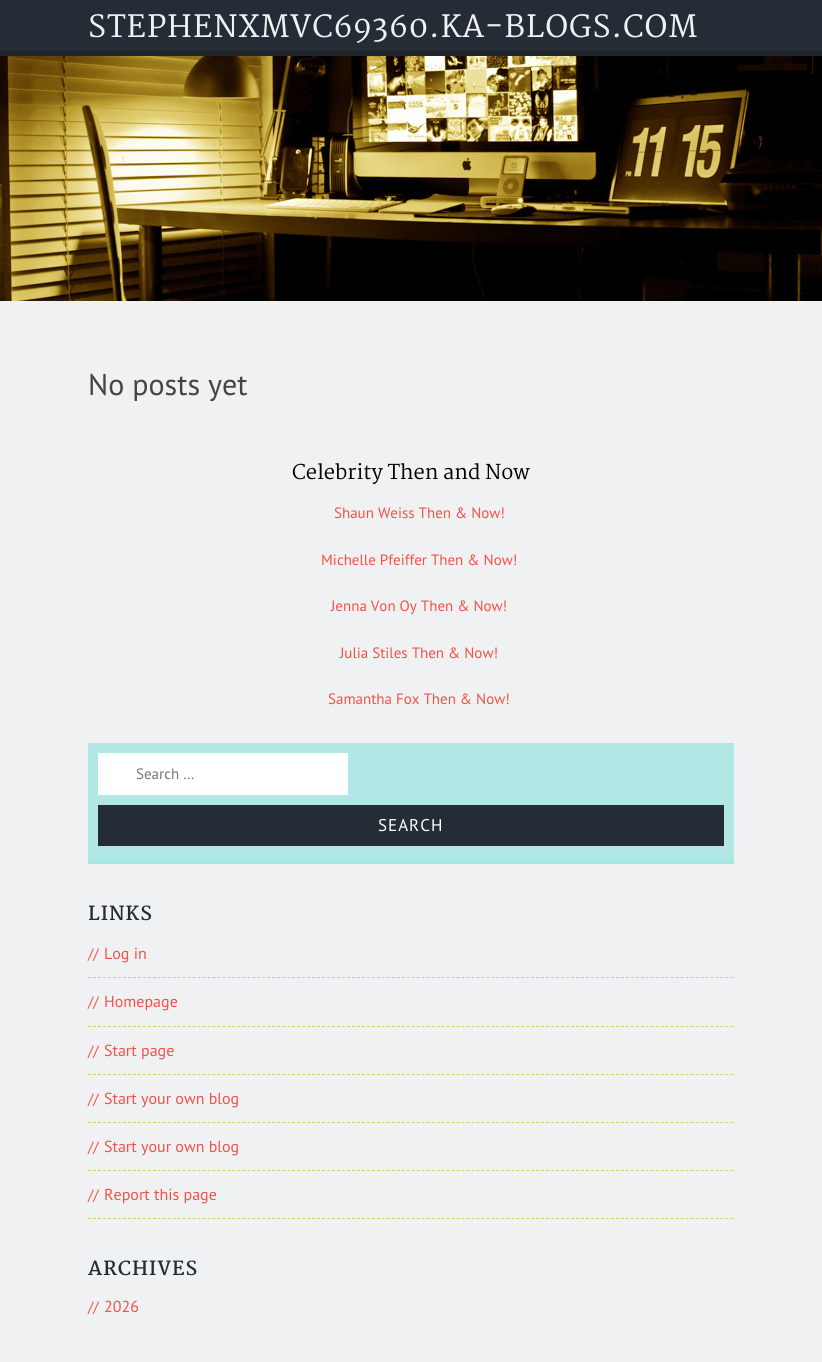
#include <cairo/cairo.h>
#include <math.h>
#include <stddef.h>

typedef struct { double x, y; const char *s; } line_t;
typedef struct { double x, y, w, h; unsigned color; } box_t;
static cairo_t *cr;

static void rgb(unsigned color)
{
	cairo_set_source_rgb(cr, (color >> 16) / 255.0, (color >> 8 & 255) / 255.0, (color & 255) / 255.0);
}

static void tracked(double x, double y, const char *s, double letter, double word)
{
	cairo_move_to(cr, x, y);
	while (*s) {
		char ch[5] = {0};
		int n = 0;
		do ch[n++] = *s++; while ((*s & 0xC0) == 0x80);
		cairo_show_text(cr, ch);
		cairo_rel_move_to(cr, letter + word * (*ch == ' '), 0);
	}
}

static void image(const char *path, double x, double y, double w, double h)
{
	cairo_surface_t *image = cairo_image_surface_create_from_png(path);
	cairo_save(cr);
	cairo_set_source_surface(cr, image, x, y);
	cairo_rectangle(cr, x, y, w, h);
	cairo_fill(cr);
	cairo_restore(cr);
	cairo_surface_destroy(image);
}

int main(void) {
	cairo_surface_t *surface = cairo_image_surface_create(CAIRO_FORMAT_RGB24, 822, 1362);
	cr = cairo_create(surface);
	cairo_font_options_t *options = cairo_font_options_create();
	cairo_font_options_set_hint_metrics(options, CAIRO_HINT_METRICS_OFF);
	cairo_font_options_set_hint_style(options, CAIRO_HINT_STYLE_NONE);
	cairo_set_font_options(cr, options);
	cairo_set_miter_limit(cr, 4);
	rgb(0xf0f1f3);
	cairo_paint(cr);
	rgb(0x242d36);
	cairo_rectangle(cr, 0, 0, 822, 51);
	cairo_fill(cr);
	rgb(0x1e252d);
	cairo_rectangle(cr, 0, 51, 822, 5);
	cairo_fill(cr);
	image("img/1.png", 0, 56, 822, 245);
	{
		static const box_t items[] = {
			{88, 743, 646, 116, 0xb1e8e6},
			{88, 859, 646, 5, 0xa5e5e2},
			{98, 753, 250, 42, 0xffffff},
			{98, 805, 626, 41, 0x242d36},
		};
		for (size_t i = 0; i < sizeof items / sizeof *items; i++) {
			rgb(items[i].color);
			cairo_rectangle(cr, items[i].x, items[i].y, items[i].w, items[i].h);
			cairo_fill(cr);
		}
	}
	cairo_new_path(cr);
	cairo_move_to(cr, 88, 977.5);
	cairo_line_to(cr, 734, 977.5);
	rgb(0xcdd851);
	cairo_set_line_width(cr, 1);
	cairo_set_dash(cr, (double[]){3, 1.98}, 2, 0);
	cairo_stroke(cr);
	cairo_new_path(cr);
	cairo_move_to(cr, 88, 1026.5);
	cairo_line_to(cr, 734, 1026.5);
	cairo_stroke(cr);
	cairo_new_path(cr);
	cairo_move_to(cr, 88, 1074.5);
	cairo_line_to(cr, 734, 1074.5);
	cairo_stroke(cr);
	cairo_new_path(cr);
	cairo_move_to(cr, 88, 1122.5);
	cairo_line_to(cr, 734, 1122.5);
	cairo_stroke(cr);
	cairo_new_path(cr);
	cairo_move_to(cr, 88, 1170.5);
	cairo_line_to(cr, 734, 1170.5);
	cairo_stroke(cr);
	cairo_new_path(cr);
	cairo_move_to(cr, 88, 1218.5);
	cairo_line_to(cr, 734, 1218.5);
	cairo_stroke(cr);
	cairo_select_font_face(cr, "Martel SemiBold", CAIRO_FONT_SLANT_NORMAL, CAIRO_FONT_WEIGHT_NORMAL);
	cairo_set_font_size(cr, 30);
	rgb(0xf0f1f3);
	tracked(88, 37, "STEPHENXMVC69360.KA-BLOGS.COM", 1, 0);
	cairo_select_font_face(cr, "PT Sans", CAIRO_FONT_SLANT_NORMAL, CAIRO_FONT_WEIGHT_NORMAL);
	rgb(0x444444);
	cairo_move_to(cr, 88, 395);
	cairo_show_text(cr, "No posts yet");
	cairo_select_font_face(cr, "Martel", CAIRO_FONT_SLANT_NORMAL, CAIRO_FONT_WEIGHT_NORMAL);
	cairo_set_font_size(cr, 20);
	rgb(0x000000);
	cairo_move_to(cr, 292, 479);
	cairo_show_text(cr, "Celebrity Then and Now");
	cairo_select_font_face(cr, "PT Sans", CAIRO_FONT_SLANT_NORMAL, CAIRO_FONT_WEIGHT_NORMAL);
	cairo_set_font_size(cr, 15);
	rgb(0xf45145);
	{
		static const line_t items[] = {
			{334, 518, "Shaun Weiss Then & Now!"},
			{321, 565, "Michelle Pfeiffer Then & Now!"},
			{331, 611, "Jenna Von Oy Then & Now!"},
			{340, 658, "Julia Stiles Then & Now!"},
			{328, 704, "Samantha Fox Then & Now!"},
		};
		for (size_t i = 0; i < sizeof items / sizeof *items; i++) {
			cairo_move_to(cr, items[i].x, items[i].y);
			cairo_show_text(cr, items[i].s);
		}
	}
	rgb(0x757575);
	cairo_move_to(cr, 136, 779);
	cairo_show_text(cr, "Search …");
	cairo_set_font_size(cr, 17);
	rgb(0xffffff);
	tracked(378, 831, "SEARCH", 1, 0);
	cairo_select_font_face(cr, "Martel", CAIRO_FONT_SLANT_NORMAL, CAIRO_FONT_WEIGHT_BOLD);
	cairo_set_font_size(cr, 19);
	rgb(0x242d36);
	tracked(88, 920, "LINKS", 1, 0);
	cairo_select_font_face(cr, "PT Sans", CAIRO_FONT_SLANT_NORMAL, CAIRO_FONT_WEIGHT_NORMAL);
	cairo_set_font_size(cr, 15);
	rgb(0xf45145);
	cairo_move_to(cr, 88, 959);
	cairo_show_text(cr, "//");
	cairo_set_font_size(cr, 16);
	cairo_move_to(cr, 104, 959);
	cairo_show_text(cr, "Log in");
	cairo_set_font_size(cr, 15);
	cairo_move_to(cr, 88, 1007);
	cairo_show_text(cr, "//");
	cairo_set_font_size(cr, 16);
	cairo_move_to(cr, 104, 1007);
	cairo_show_text(cr, "Homepage");
	cairo_set_font_size(cr, 15);
	cairo_move_to(cr, 88, 1056);
	cairo_show_text(cr, "//");
	cairo_set_font_size(cr, 16);
	cairo_move_to(cr, 104, 1056);
	cairo_show_text(cr, "Start page");
	cairo_set_font_size(cr, 15);
	cairo_move_to(cr, 88, 1104);
	cairo_show_text(cr, "//");
	cairo_set_font_size(cr, 16);
	cairo_move_to(cr, 104, 1104);
	cairo_show_text(cr, "Start your own blog");
	cairo_set_font_size(cr, 15);
	cairo_move_to(cr, 88, 1152);
	cairo_show_text(cr, "//");
	cairo_set_font_size(cr, 16);
	cairo_move_to(cr, 104, 1152);
	cairo_show_text(cr, "Start your own blog");
	cairo_set_font_size(cr, 15);
	cairo_move_to(cr, 88, 1200);
	cairo_show_text(cr, "//");
	cairo_set_font_size(cr, 16);
	cairo_move_to(cr, 104, 1200);
	cairo_show_text(cr, "Report this page");
	cairo_select_font_face(cr, "Martel", CAIRO_FONT_SLANT_NORMAL, CAIRO_FONT_WEIGHT_BOLD);
	cairo_set_font_size(cr, 19);
	rgb(0x242d36);
	tracked(88, 1275, "ARCHIVES", 1, 0);
	cairo_select_font_face(cr, "PT Sans", CAIRO_FONT_SLANT_NORMAL, CAIRO_FONT_WEIGHT_NORMAL);
	cairo_set_font_size(cr, 15);
	rgb(0xf45145);
	cairo_move_to(cr, 88, 1312);
	cairo_show_text(cr, "//");
	cairo_set_font_size(cr, 16);
	cairo_move_to(cr, 104, 1312);
	cairo_show_text(cr, "2026");
	cairo_surface_write_to_png(surface, "page.png");
	cairo_font_options_destroy(options);
	cairo_destroy(cr);
	cairo_surface_destroy(surface);
	return 0;
}
